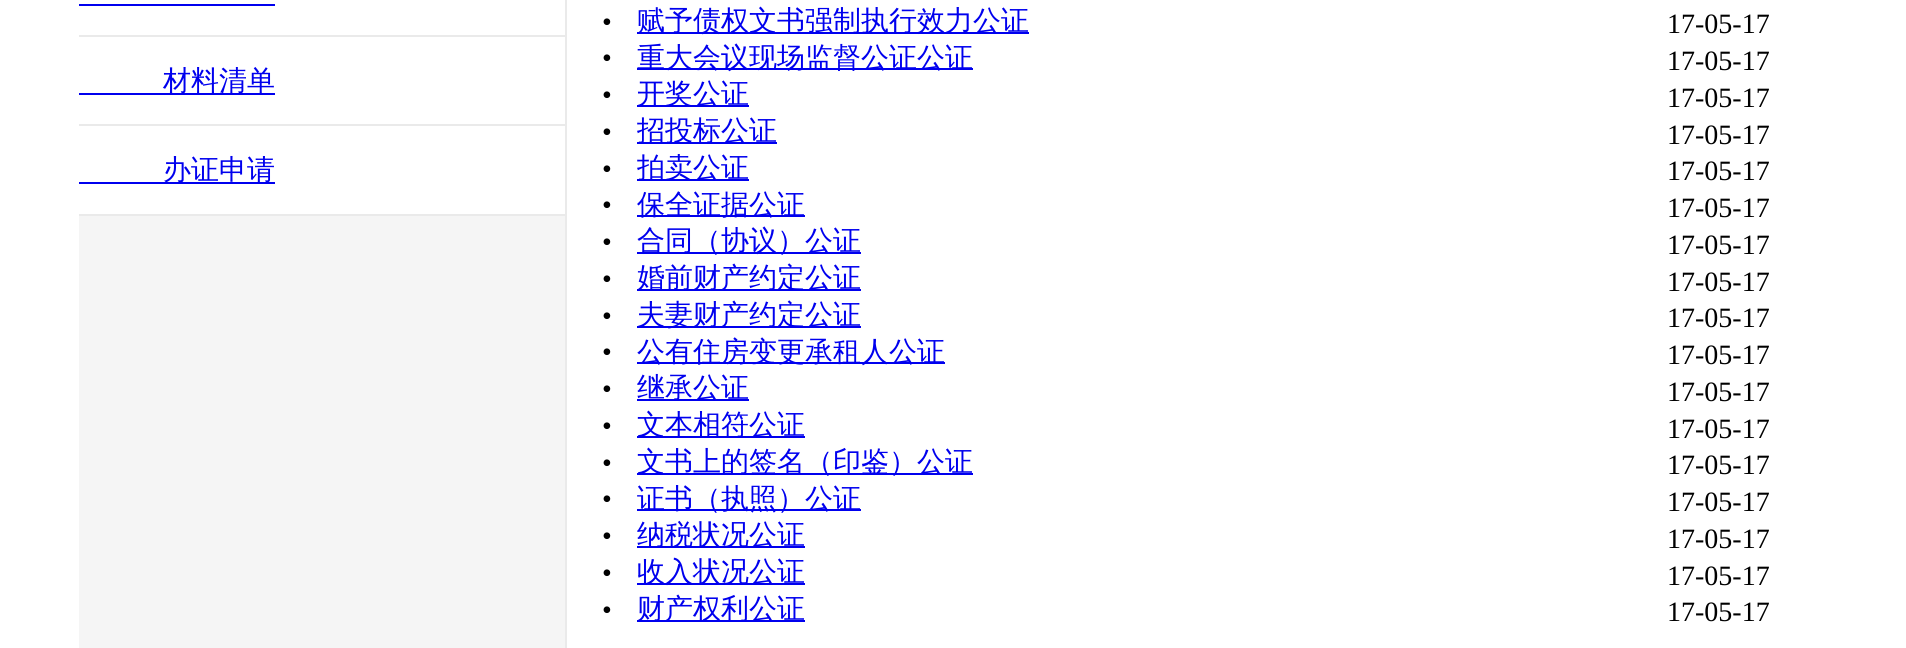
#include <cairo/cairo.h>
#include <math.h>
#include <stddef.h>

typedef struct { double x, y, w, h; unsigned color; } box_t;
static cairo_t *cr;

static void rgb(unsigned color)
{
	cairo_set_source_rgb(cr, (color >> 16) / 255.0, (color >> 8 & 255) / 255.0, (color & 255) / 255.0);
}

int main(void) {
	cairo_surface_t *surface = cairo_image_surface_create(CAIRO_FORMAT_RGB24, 1906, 648);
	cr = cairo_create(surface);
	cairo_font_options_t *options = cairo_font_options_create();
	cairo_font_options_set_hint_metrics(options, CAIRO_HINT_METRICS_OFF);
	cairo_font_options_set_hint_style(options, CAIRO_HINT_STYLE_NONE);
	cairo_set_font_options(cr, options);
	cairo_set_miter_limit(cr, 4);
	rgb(0xffffff);
	cairo_paint(cr);
	{
		static const box_t items[] = {
			{79, 216, 486, 432, 0xf5f5f5},
			{79, 4, 196, 2, 0x0000ee},
			{79, 35, 486, 2, 0xeaeaea},
			{79, 93, 196, 2, 0x0000ee},
			{79, 124, 486, 2, 0xeaeaea},
			{79, 182, 196, 2, 0x0000ee},
			{79, 214, 486, 2, 0xeaeaea},
			{565, 0, 2, 648, 0xeaeaea},
			{637, 32, 392, 2, 0x0000ee},
			{637, 68, 336, 2, 0x0000ee},
			{637, 105, 112, 2, 0x0000ee},
			{637, 142, 140, 2, 0x0000ee},
			{637, 179, 112, 2, 0x0000ee},
			{637, 215, 168, 2, 0x0000ee},
			{637, 252, 224, 2, 0x0000ee},
			{637, 289, 224, 2, 0x0000ee},
			{637, 326, 224, 2, 0x0000ee},
			{637, 362, 308, 2, 0x0000ee},
			{637, 399, 112, 2, 0x0000ee},
			{637, 436, 168, 2, 0x0000ee},
			{637, 473, 336, 2, 0x0000ee},
			{637, 509, 224, 2, 0x0000ee},
			{637, 546, 168, 2, 0x0000ee},
			{637, 583, 168, 2, 0x0000ee},
			{637, 620, 168, 2, 0x0000ee},
		};
		for (size_t i = 0; i < sizeof items / sizeof *items; i++) {
			rgb(items[i].color);
			cairo_rectangle(cr, items[i].x, items[i].y, items[i].w, items[i].h);
			cairo_fill(cr);
		}
	}
	cairo_select_font_face(cr, "WenQuanYi Zen Hei Medium", CAIRO_FONT_SLANT_NORMAL, CAIRO_FONT_WEIGHT_NORMAL);
	cairo_set_font_size(cr, 28);
	cairo_move_to(cr, 163, 90);
	cairo_show_text(cr, "材料清单");
	cairo_move_to(cr, 163, 179);
	cairo_show_text(cr, "办证申请");
	cairo_select_font_face(cr, "Liberation Serif", CAIRO_FONT_SLANT_NORMAL, CAIRO_FONT_WEIGHT_NORMAL);
	rgb(0x000000);
	cairo_move_to(cr, 602, 31);
	cairo_show_text(cr, "•");
	cairo_select_font_face(cr, "WenQuanYi Zen Hei Medium", CAIRO_FONT_SLANT_NORMAL, CAIRO_FONT_WEIGHT_NORMAL);
	rgb(0x0000ee);
	cairo_move_to(cr, 637, 30);
	cairo_show_text(cr, "赋予债权文书强制执行效力公证");
	cairo_select_font_face(cr, "Liberation Serif", CAIRO_FONT_SLANT_NORMAL, CAIRO_FONT_WEIGHT_NORMAL);
	rgb(0x000000);
	cairo_move_to(cr, 1667, 33);
	cairo_show_text(cr, "17-05-17");
	cairo_move_to(cr, 602, 67);
	cairo_show_text(cr, "•");
	cairo_select_font_face(cr, "WenQuanYi Zen Hei Medium", CAIRO_FONT_SLANT_NORMAL, CAIRO_FONT_WEIGHT_NORMAL);
	rgb(0x0000ee);
	cairo_move_to(cr, 637, 67);
	cairo_show_text(cr, "重大会议现场监督公证公证");
	cairo_select_font_face(cr, "Liberation Serif", CAIRO_FONT_SLANT_NORMAL, CAIRO_FONT_WEIGHT_NORMAL);
	rgb(0x000000);
	cairo_move_to(cr, 1667, 70);
	cairo_show_text(cr, "17-05-17");
	cairo_move_to(cr, 602, 104);
	cairo_show_text(cr, "•");
	cairo_select_font_face(cr, "WenQuanYi Zen Hei Medium", CAIRO_FONT_SLANT_NORMAL, CAIRO_FONT_WEIGHT_NORMAL);
	rgb(0x0000ee);
	cairo_move_to(cr, 637, 103);
	cairo_show_text(cr, "开奖公证");
	cairo_select_font_face(cr, "Liberation Serif", CAIRO_FONT_SLANT_NORMAL, CAIRO_FONT_WEIGHT_NORMAL);
	rgb(0x000000);
	cairo_move_to(cr, 1667, 107);
	cairo_show_text(cr, "17-05-17");
	cairo_move_to(cr, 602, 141);
	cairo_show_text(cr, "•");
	cairo_select_font_face(cr, "WenQuanYi Zen Hei Medium", CAIRO_FONT_SLANT_NORMAL, CAIRO_FONT_WEIGHT_NORMAL);
	rgb(0x0000ee);
	cairo_move_to(cr, 637, 140);
	cairo_show_text(cr, "招投标公证");
	cairo_select_font_face(cr, "Liberation Serif", CAIRO_FONT_SLANT_NORMAL, CAIRO_FONT_WEIGHT_NORMAL);
	rgb(0x000000);
	cairo_move_to(cr, 1667, 144);
	cairo_show_text(cr, "17-05-17");
	cairo_move_to(cr, 602, 178);
	cairo_show_text(cr, "•");
	cairo_select_font_face(cr, "WenQuanYi Zen Hei Medium", CAIRO_FONT_SLANT_NORMAL, CAIRO_FONT_WEIGHT_NORMAL);
	rgb(0x0000ee);
	cairo_move_to(cr, 637, 177);
	cairo_show_text(cr, "拍卖公证");
	cairo_select_font_face(cr, "Liberation Serif", CAIRO_FONT_SLANT_NORMAL, CAIRO_FONT_WEIGHT_NORMAL);
	rgb(0x000000);
	cairo_move_to(cr, 1667, 180);
	cairo_show_text(cr, "17-05-17");
	cairo_move_to(cr, 602, 214);
	cairo_show_text(cr, "•");
	cairo_select_font_face(cr, "WenQuanYi Zen Hei Medium", CAIRO_FONT_SLANT_NORMAL, CAIRO_FONT_WEIGHT_NORMAL);
	rgb(0x0000ee);
	cairo_move_to(cr, 637, 214);
	cairo_show_text(cr, "保全证据公证");
	cairo_select_font_face(cr, "Liberation Serif", CAIRO_FONT_SLANT_NORMAL, CAIRO_FONT_WEIGHT_NORMAL);
	rgb(0x000000);
	cairo_move_to(cr, 1667, 217);
	cairo_show_text(cr, "17-05-17");
	cairo_move_to(cr, 602, 251);
	cairo_show_text(cr, "•");
	cairo_select_font_face(cr, "WenQuanYi Zen Hei Medium", CAIRO_FONT_SLANT_NORMAL, CAIRO_FONT_WEIGHT_NORMAL);
	rgb(0x0000ee);
	cairo_move_to(cr, 637, 250);
	cairo_show_text(cr, "合同（协议）公证");
	cairo_select_font_face(cr, "Liberation Serif", CAIRO_FONT_SLANT_NORMAL, CAIRO_FONT_WEIGHT_NORMAL);
	rgb(0x000000);
	cairo_move_to(cr, 1667, 254);
	cairo_show_text(cr, "17-05-17");
	cairo_move_to(cr, 602, 288);
	cairo_show_text(cr, "•");
	cairo_select_font_face(cr, "WenQuanYi Zen Hei Medium", CAIRO_FONT_SLANT_NORMAL, CAIRO_FONT_WEIGHT_NORMAL);
	rgb(0x0000ee);
	cairo_move_to(cr, 637, 287);
	cairo_show_text(cr, "婚前财产约定公证");
	cairo_select_font_face(cr, "Liberation Serif", CAIRO_FONT_SLANT_NORMAL, CAIRO_FONT_WEIGHT_NORMAL);
	rgb(0x000000);
	cairo_move_to(cr, 1667, 291);
	cairo_show_text(cr, "17-05-17");
	cairo_move_to(cr, 602, 325);
	cairo_show_text(cr, "•");
	cairo_select_font_face(cr, "WenQuanYi Zen Hei Medium", CAIRO_FONT_SLANT_NORMAL, CAIRO_FONT_WEIGHT_NORMAL);
	rgb(0x0000ee);
	cairo_move_to(cr, 637, 324);
	cairo_show_text(cr, "夫妻财产约定公证");
	cairo_select_font_face(cr, "Liberation Serif", CAIRO_FONT_SLANT_NORMAL, CAIRO_FONT_WEIGHT_NORMAL);
	rgb(0x000000);
	cairo_move_to(cr, 1667, 327);
	cairo_show_text(cr, "17-05-17");
	cairo_move_to(cr, 602, 361);
	cairo_show_text(cr, "•");
	cairo_select_font_face(cr, "WenQuanYi Zen Hei Medium", CAIRO_FONT_SLANT_NORMAL, CAIRO_FONT_WEIGHT_NORMAL);
	rgb(0x0000ee);
	cairo_move_to(cr, 637, 361);
	cairo_show_text(cr, "公有住房变更承租人公证");
	cairo_select_font_face(cr, "Liberation Serif", CAIRO_FONT_SLANT_NORMAL, CAIRO_FONT_WEIGHT_NORMAL);
	rgb(0x000000);
	cairo_move_to(cr, 1667, 364);
	cairo_show_text(cr, "17-05-17");
	cairo_move_to(cr, 602, 398);
	cairo_show_text(cr, "•");
	cairo_select_font_face(cr, "WenQuanYi Zen Hei Medium", CAIRO_FONT_SLANT_NORMAL, CAIRO_FONT_WEIGHT_NORMAL);
	rgb(0x0000ee);
	cairo_move_to(cr, 637, 397);
	cairo_show_text(cr, "继承公证");
	cairo_select_font_face(cr, "Liberation Serif", CAIRO_FONT_SLANT_NORMAL, CAIRO_FONT_WEIGHT_NORMAL);
	rgb(0x000000);
	cairo_move_to(cr, 1667, 401);
	cairo_show_text(cr, "17-05-17");
	cairo_move_to(cr, 602, 435);
	cairo_show_text(cr, "•");
	cairo_select_font_face(cr, "WenQuanYi Zen Hei Medium", CAIRO_FONT_SLANT_NORMAL, CAIRO_FONT_WEIGHT_NORMAL);
	rgb(0x0000ee);
	cairo_move_to(cr, 637, 434);
	cairo_show_text(cr, "文本相符公证");
	cairo_select_font_face(cr, "Liberation Serif", CAIRO_FONT_SLANT_NORMAL, CAIRO_FONT_WEIGHT_NORMAL);
	rgb(0x000000);
	cairo_move_to(cr, 1667, 438);
	cairo_show_text(cr, "17-05-17");
	cairo_move_to(cr, 602, 472);
	cairo_show_text(cr, "•");
	cairo_select_font_face(cr, "WenQuanYi Zen Hei Medium", CAIRO_FONT_SLANT_NORMAL, CAIRO_FONT_WEIGHT_NORMAL);
	rgb(0x0000ee);
	cairo_move_to(cr, 637, 471);
	cairo_show_text(cr, "文书上的签名（印鉴）公证");
	cairo_select_font_face(cr, "Liberation Serif", CAIRO_FONT_SLANT_NORMAL, CAIRO_FONT_WEIGHT_NORMAL);
	rgb(0x000000);
	cairo_move_to(cr, 1667, 474);
	cairo_show_text(cr, "17-05-17");
	cairo_move_to(cr, 602, 508);
	cairo_show_text(cr, "•");
	cairo_select_font_face(cr, "WenQuanYi Zen Hei Medium", CAIRO_FONT_SLANT_NORMAL, CAIRO_FONT_WEIGHT_NORMAL);
	rgb(0x0000ee);
	cairo_move_to(cr, 637, 508);
	cairo_show_text(cr, "证书（执照）公证");
	cairo_select_font_face(cr, "Liberation Serif", CAIRO_FONT_SLANT_NORMAL, CAIRO_FONT_WEIGHT_NORMAL);
	rgb(0x000000);
	cairo_move_to(cr, 1667, 511);
	cairo_show_text(cr, "17-05-17");
	cairo_move_to(cr, 602, 545);
	cairo_show_text(cr, "•");
	cairo_select_font_face(cr, "WenQuanYi Zen Hei Medium", CAIRO_FONT_SLANT_NORMAL, CAIRO_FONT_WEIGHT_NORMAL);
	rgb(0x0000ee);
	cairo_move_to(cr, 637, 544);
	cairo_show_text(cr, "纳税状况公证");
	cairo_select_font_face(cr, "Liberation Serif", CAIRO_FONT_SLANT_NORMAL, CAIRO_FONT_WEIGHT_NORMAL);
	rgb(0x000000);
	cairo_move_to(cr, 1667, 548);
	cairo_show_text(cr, "17-05-17");
	cairo_move_to(cr, 602, 582);
	cairo_show_text(cr, "•");
	cairo_select_font_face(cr, "WenQuanYi Zen Hei Medium", CAIRO_FONT_SLANT_NORMAL, CAIRO_FONT_WEIGHT_NORMAL);
	rgb(0x0000ee);
	cairo_move_to(cr, 637, 581);
	cairo_show_text(cr, "收入状况公证");
	cairo_select_font_face(cr, "Liberation Serif", CAIRO_FONT_SLANT_NORMAL, CAIRO_FONT_WEIGHT_NORMAL);
	rgb(0x000000);
	cairo_move_to(cr, 1667, 585);
	cairo_show_text(cr, "17-05-17");
	cairo_move_to(cr, 602, 619);
	cairo_show_text(cr, "•");
	cairo_select_font_face(cr, "WenQuanYi Zen Hei Medium", CAIRO_FONT_SLANT_NORMAL, CAIRO_FONT_WEIGHT_NORMAL);
	rgb(0x0000ee);
	cairo_move_to(cr, 637, 618);
	cairo_show_text(cr, "财产权利公证");
	cairo_select_font_face(cr, "Liberation Serif", CAIRO_FONT_SLANT_NORMAL, CAIRO_FONT_WEIGHT_NORMAL);
	rgb(0x000000);
	cairo_move_to(cr, 1667, 621);
	cairo_show_text(cr, "17-05-17");
	cairo_surface_write_to_png(surface, "page.png");
	cairo_font_options_destroy(options);
	cairo_destroy(cr);
	cairo_surface_destroy(surface);
	return 0;
}
